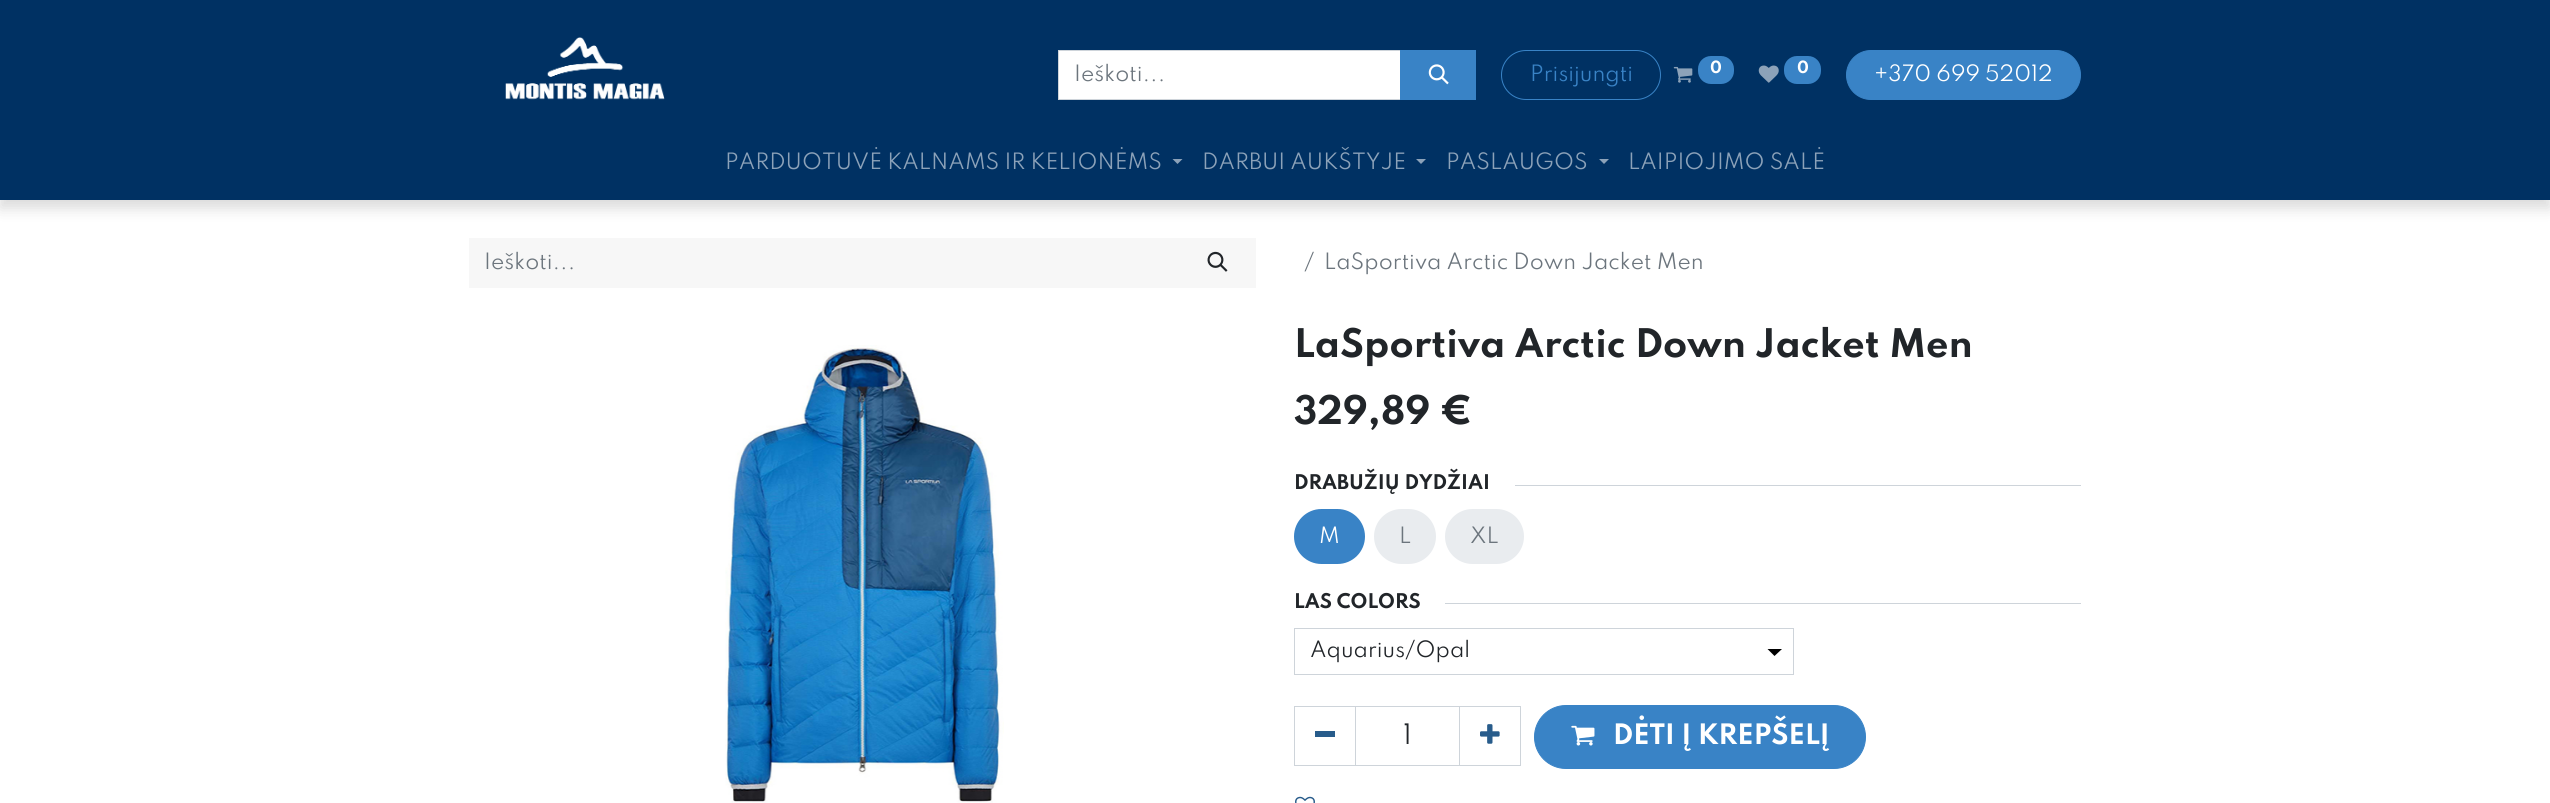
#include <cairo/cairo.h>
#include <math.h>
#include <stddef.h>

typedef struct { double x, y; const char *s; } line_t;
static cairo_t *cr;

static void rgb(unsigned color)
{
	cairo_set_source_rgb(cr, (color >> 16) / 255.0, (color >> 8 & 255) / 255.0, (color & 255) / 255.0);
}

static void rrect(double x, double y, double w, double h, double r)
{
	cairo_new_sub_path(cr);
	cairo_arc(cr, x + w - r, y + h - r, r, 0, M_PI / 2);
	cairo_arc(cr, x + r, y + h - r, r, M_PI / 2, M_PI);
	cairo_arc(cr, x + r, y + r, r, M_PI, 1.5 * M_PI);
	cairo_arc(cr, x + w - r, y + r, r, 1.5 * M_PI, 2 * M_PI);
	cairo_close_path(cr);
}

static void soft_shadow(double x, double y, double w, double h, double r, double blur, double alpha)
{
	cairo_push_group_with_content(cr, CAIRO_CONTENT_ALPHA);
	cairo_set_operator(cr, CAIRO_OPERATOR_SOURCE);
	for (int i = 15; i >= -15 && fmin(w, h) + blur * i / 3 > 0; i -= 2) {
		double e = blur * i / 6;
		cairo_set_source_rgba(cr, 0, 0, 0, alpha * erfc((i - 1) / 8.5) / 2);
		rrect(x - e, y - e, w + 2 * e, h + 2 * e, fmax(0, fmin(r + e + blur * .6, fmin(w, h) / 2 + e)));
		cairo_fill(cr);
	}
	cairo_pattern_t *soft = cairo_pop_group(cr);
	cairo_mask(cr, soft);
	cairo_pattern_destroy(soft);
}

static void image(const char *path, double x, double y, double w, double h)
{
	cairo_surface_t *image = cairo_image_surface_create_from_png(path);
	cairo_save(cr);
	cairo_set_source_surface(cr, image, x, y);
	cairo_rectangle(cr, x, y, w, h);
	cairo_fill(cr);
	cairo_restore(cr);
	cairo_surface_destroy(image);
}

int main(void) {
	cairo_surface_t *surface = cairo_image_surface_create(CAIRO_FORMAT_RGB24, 2550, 803);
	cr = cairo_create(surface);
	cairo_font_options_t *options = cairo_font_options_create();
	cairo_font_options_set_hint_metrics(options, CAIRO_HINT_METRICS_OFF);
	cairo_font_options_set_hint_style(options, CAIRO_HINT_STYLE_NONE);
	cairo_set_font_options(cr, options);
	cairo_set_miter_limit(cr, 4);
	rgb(0xffffff);
	cairo_paint(cr);
	rgb(0x000000);
	soft_shadow(0, 8, 2550, 200, 0, 7.5, 0.15);
	rgb(0x003163);
	cairo_rectangle(cr, 0, 0, 2550, 200);
	cairo_fill(cr);
	image("img/1.png", 505, 37, 160, 63);
	rgb(0xffffff);
	cairo_rectangle(cr, 1058.5, 50.5, 342, 49);
	cairo_fill_preserve(cr);
	rgb(0xced4da);
	cairo_set_line_width(cr, 1);
	cairo_stroke(cr);
	rgb(0x3983c6);
	cairo_rectangle(cr, 1400, 50, 76, 50);
	cairo_fill(cr);
	image("img/2.png", 1428, 64, 21, 21);
	rrect(1501.5, 50.5, 159, 49, 24.5);
	cairo_stroke(cr);
	image("img/3.png", 1673, 66, 20, 17);
	rrect(1698, 56, 36, 28, 13);
	cairo_fill(cr);
	image("img/4.png", 1758, 65, 21, 18);
	rrect(1784, 56, 37, 28, 13);
	cairo_fill(cr);
	rrect(1846.5, 50.5, 234, 49, 24.5);
	cairo_fill_preserve(cr);
	cairo_stroke(cr);
	rgb(0x8ca2b9);
	cairo_new_path(cr);
	cairo_move_to(cr, 1172.5, 159);
	cairo_line_to(cr, 1182.5, 159);
	cairo_line_to(cr, 1177.5, 164);
	cairo_close_path(cr);
	cairo_fill(cr);
	cairo_new_path(cr);
	cairo_move_to(cr, 1416, 159);
	cairo_line_to(cr, 1426, 159);
	cairo_line_to(cr, 1421, 164);
	cairo_close_path(cr);
	cairo_fill(cr);
	cairo_new_path(cr);
	cairo_move_to(cr, 1599, 159);
	cairo_line_to(cr, 1609, 159);
	cairo_line_to(cr, 1604, 164);
	cairo_close_path(cr);
	cairo_fill(cr);
	rgb(0xf7f7f7);
	cairo_rectangle(cr, 469, 238, 787, 50);
	cairo_fill(cr);
	image("img/5.png", 1207, 251, 21, 21);
	image("img/6.png", 725, 345, 279, 458);
	rgb(0xced4da);
	cairo_rectangle(cr, 1515, 485, 566, 1);
	cairo_fill(cr);
	rgb(0x3983c6);
	rrect(1294, 509, 71, 55, 27.5);
	cairo_fill(cr);
	rgb(0xe9ecef);
	rrect(1374, 509, 62, 55, 27.5);
	cairo_fill(cr);
	rrect(1445, 509, 79, 55, 27.5);
	cairo_fill(cr);
	rgb(0xced4da);
	cairo_rectangle(cr, 1445, 603, 636, 1);
	cairo_fill(cr);
	rgb(0x000000);
	cairo_new_path(cr);
	cairo_move_to(cr, 1767.5, 649);
	cairo_line_to(cr, 1782, 649);
	cairo_line_to(cr, 1774.5, 656);
	cairo_close_path(cr);
	cairo_fill(cr);
	cairo_rectangle(cr, 1294.5, 628.5, 499, 46);
	rgb(0xced4da);
	cairo_stroke(cr);
	cairo_rectangle(cr, 1355.5, 706.5, 104, 59);
	cairo_stroke(cr);
	cairo_rectangle(cr, 1294.5, 706.5, 61, 59);
	cairo_stroke(cr);
	rgb(0x285c8b);
	cairo_rectangle(cr, 1315, 731, 20, 6);
	cairo_fill(cr);
	cairo_rectangle(cr, 1459.5, 706.5, 61, 59);
	rgb(0xced4da);
	cairo_stroke(cr);
	image("img/7.png", 1480, 724, 20, 20);
	rgb(0x3983c6);
	rrect(1534.5, 705.5, 331, 63, 31.5);
	cairo_fill_preserve(cr);
	cairo_stroke(cr);
	image("img/8.png", 1571, 725, 24, 21);
	image("img/9.png", 1295, 796, 20, 7);
	cairo_select_font_face(cr, "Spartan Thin", CAIRO_FONT_SLANT_NORMAL, CAIRO_FONT_WEIGHT_NORMAL);
	cairo_set_font_size(cr, 20);
	rgb(0x6c757d);
	cairo_move_to(cr, 1074, 81);
	cairo_show_text(cr, "Ieškoti...");
	rgb(0x3983c6);
	cairo_move_to(cr, 1530, 81);
	cairo_show_text(cr, "Prisijungti");
	cairo_select_font_face(cr, "Spartan Thin", CAIRO_FONT_SLANT_NORMAL, CAIRO_FONT_WEIGHT_BOLD);
	cairo_set_font_size(cr, 15);
	rgb(0xffffff);
	cairo_move_to(cr, 1710, 73);
	cairo_show_text(cr, "0");
	cairo_move_to(cr, 1797, 73);
	cairo_show_text(cr, "0");
	cairo_select_font_face(cr, "Spartan Thin", CAIRO_FONT_SLANT_NORMAL, CAIRO_FONT_WEIGHT_NORMAL);
	cairo_set_font_size(cr, 20);
	cairo_move_to(cr, 1874, 81);
	cairo_show_text(cr, "+370 699 52012");
	rgb(0x8ca2b9);
	{
		static const line_t items[] = {
			{725, 169, "PARDUOTUVĖ KALNAMS IR KELIONĖMS"},
			{1202, 169, "DARBUI AUKŠTYJE"},
			{1446, 169, "PASLAUGOS"},
			{1628, 169, "LAIPIOJIMO SALĖ"},
		};
		for (size_t i = 0; i < sizeof items / sizeof *items; i++) {
			cairo_move_to(cr, items[i].x, items[i].y);
			cairo_show_text(cr, items[i].s);
		}
	}
	rgb(0x6c757d);
	{
		static const line_t items[] = {
			{484, 269, "Ieškoti..."},
			{1304, 269, "/"},
			{1324, 269, "LaSportiva Arctic Down Jacket Men"},
		};
		for (size_t i = 0; i < sizeof items / sizeof *items; i++) {
			cairo_move_to(cr, items[i].x, items[i].y);
			cairo_show_text(cr, items[i].s);
		}
	}
	cairo_select_font_face(cr, "Spartan Thin", CAIRO_FONT_SLANT_NORMAL, CAIRO_FONT_WEIGHT_BOLD);
	cairo_set_font_size(cr, 35);
	rgb(0x212529);
	cairo_move_to(cr, 1294, 357);
	cairo_show_text(cr, "LaSportiva Arctic Down Jacket Men");
	cairo_move_to(cr, 1294, 424);
	cairo_show_text(cr, "329,89 €");
	cairo_set_font_size(cr, 18);
	cairo_move_to(cr, 1294, 489);
	cairo_show_text(cr, "DRABUŽIŲ DYDŽIAI");
	cairo_select_font_face(cr, "Spartan Thin", CAIRO_FONT_SLANT_NORMAL, CAIRO_FONT_WEIGHT_NORMAL);
	cairo_set_font_size(cr, 20);
	rgb(0xffffff);
	cairo_move_to(cr, 1319, 543);
	cairo_show_text(cr, "M");
	rgb(0x6c757d);
	cairo_move_to(cr, 1399, 543);
	cairo_show_text(cr, "L");
	cairo_move_to(cr, 1470, 543);
	cairo_show_text(cr, "XL");
	cairo_select_font_face(cr, "Spartan Thin", CAIRO_FONT_SLANT_NORMAL, CAIRO_FONT_WEIGHT_BOLD);
	cairo_set_font_size(cr, 18);
	rgb(0x212529);
	cairo_move_to(cr, 1294, 608);
	cairo_show_text(cr, "LAS COLORS");
	cairo_select_font_face(cr, "Spartan Thin", CAIRO_FONT_SLANT_NORMAL, CAIRO_FONT_WEIGHT_NORMAL);
	cairo_set_font_size(cr, 20);
	cairo_move_to(cr, 1310, 657);
	cairo_show_text(cr, "Aquarius/Opal");
	cairo_set_font_size(cr, 25);
	cairo_move_to(cr, 1403, 744);
	cairo_show_text(cr, "1");
	cairo_select_font_face(cr, "Spartan Thin", CAIRO_FONT_SLANT_NORMAL, CAIRO_FONT_WEIGHT_BOLD);
	rgb(0xffffff);
	cairo_move_to(cr, 1613, 744);
	cairo_show_text(cr, "DĖTI Į KREPŠELĮ");
	cairo_surface_write_to_png(surface, "page.png");
	cairo_font_options_destroy(options);
	cairo_destroy(cr);
	cairo_surface_destroy(surface);
	return 0;
}
